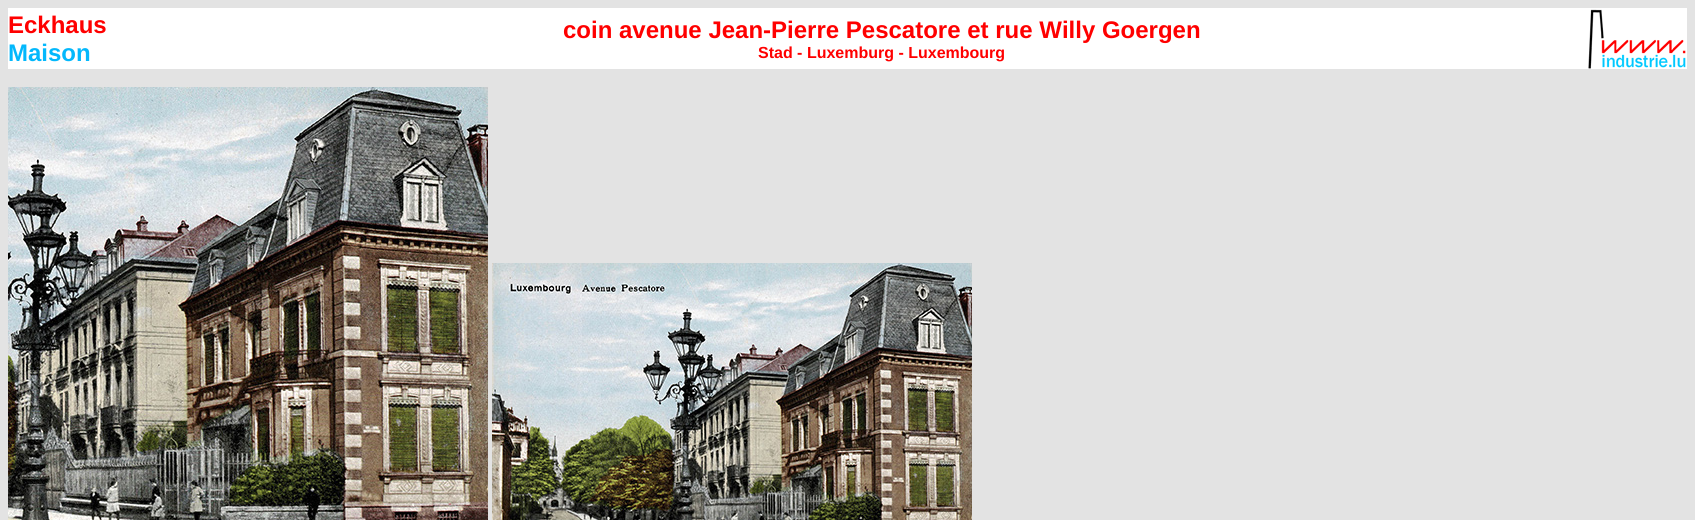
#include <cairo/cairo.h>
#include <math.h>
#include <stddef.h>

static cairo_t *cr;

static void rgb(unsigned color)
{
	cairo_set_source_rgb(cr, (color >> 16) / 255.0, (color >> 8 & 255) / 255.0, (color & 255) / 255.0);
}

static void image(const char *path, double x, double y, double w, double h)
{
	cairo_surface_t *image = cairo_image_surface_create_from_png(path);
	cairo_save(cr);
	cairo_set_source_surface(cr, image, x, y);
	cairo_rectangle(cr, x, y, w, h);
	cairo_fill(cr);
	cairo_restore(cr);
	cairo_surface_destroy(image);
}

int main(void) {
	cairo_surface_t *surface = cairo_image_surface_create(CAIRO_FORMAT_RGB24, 1695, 520);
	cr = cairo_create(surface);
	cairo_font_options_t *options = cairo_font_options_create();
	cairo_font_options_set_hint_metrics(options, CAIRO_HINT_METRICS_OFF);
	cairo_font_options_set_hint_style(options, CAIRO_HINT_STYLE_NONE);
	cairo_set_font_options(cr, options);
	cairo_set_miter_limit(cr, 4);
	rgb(0xe3e3e3);
	cairo_paint(cr);
	rgb(0xffffff);
	cairo_rectangle(cr, 8, 8, 1679, 61);
	cairo_fill(cr);
	image("img/1.png", 1588, 9, 98, 60);
	image("img/2.png", 8, 87, 480, 433);
	image("img/3.png", 492, 263, 480, 257);
	cairo_select_font_face(cr, "Liberation Sans", CAIRO_FONT_SLANT_NORMAL, CAIRO_FONT_WEIGHT_BOLD);
	cairo_set_font_size(cr, 24);
	rgb(0xff0000);
	cairo_move_to(cr, 8, 33);
	cairo_show_text(cr, "Eckhaus");
	rgb(0x03b8fc);
	cairo_move_to(cr, 8, 61);
	cairo_show_text(cr, "Maison");
	rgb(0xff0000);
	cairo_move_to(cr, 563, 38);
	cairo_show_text(cr, "coin avenue Jean-Pierre Pescatore et rue Willy Goergen");
	cairo_set_font_size(cr, 16);
	cairo_move_to(cr, 758, 58);
	cairo_show_text(cr, "Stad - Luxemburg - Luxembourg");
	cairo_surface_write_to_png(surface, "page.png");
	cairo_font_options_destroy(options);
	cairo_destroy(cr);
	cairo_surface_destroy(surface);
	return 0;
}
